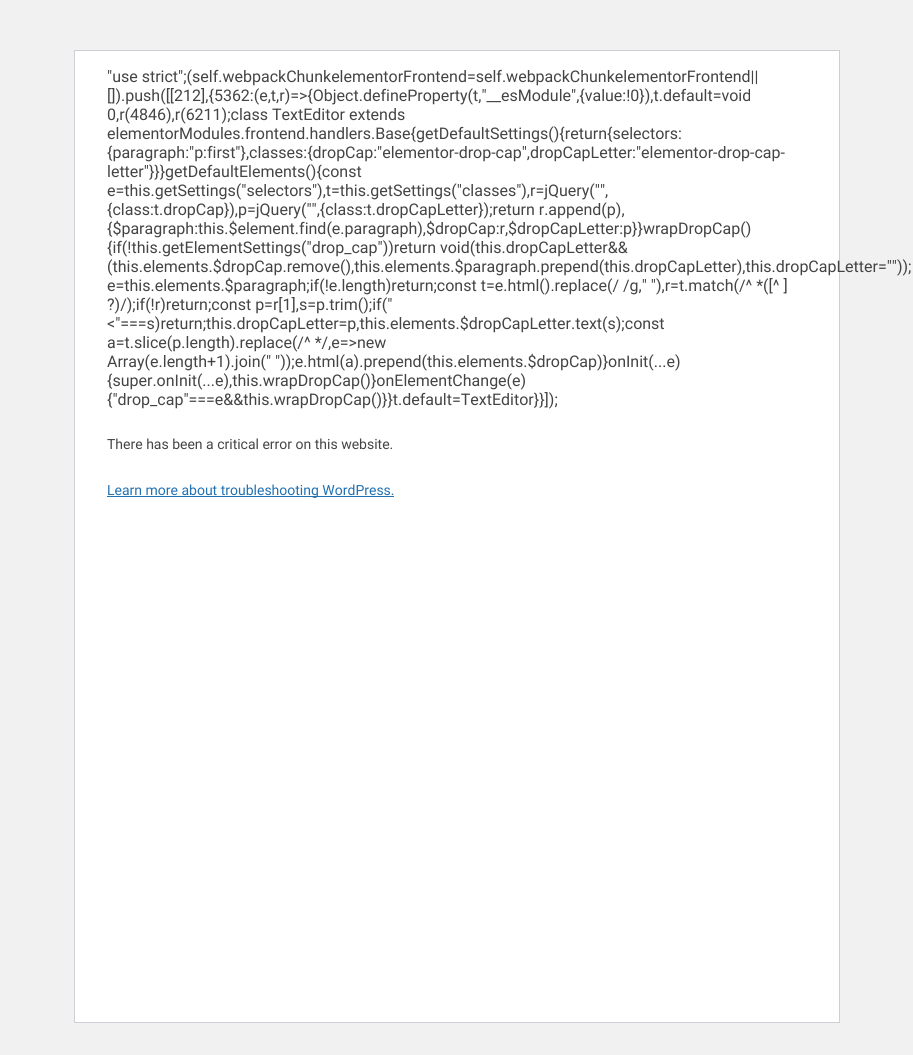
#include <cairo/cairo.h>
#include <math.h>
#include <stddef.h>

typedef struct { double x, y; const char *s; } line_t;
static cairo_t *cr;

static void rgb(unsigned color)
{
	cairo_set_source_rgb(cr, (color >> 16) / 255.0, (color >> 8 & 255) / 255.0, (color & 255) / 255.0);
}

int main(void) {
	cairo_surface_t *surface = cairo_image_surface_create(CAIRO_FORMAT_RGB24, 913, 1055);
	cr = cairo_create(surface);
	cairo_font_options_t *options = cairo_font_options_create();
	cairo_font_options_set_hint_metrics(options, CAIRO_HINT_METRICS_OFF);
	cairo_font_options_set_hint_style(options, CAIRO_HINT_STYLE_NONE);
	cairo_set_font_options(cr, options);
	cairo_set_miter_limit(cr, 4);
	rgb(0xf1f1f1);
	cairo_paint(cr);
	rgb(0xffffff);
	cairo_rectangle(cr, 74.5, 50.5, 765, 972);
	cairo_fill_preserve(cr);
	rgb(0xccd0d4);
	cairo_set_line_width(cr, 1);
	cairo_stroke(cr);
	rgb(0x2271b1);
	cairo_rectangle(cr, 107, 496, 287, 1);
	cairo_fill(cr);
	cairo_select_font_face(cr, "Roboto", CAIRO_FONT_SLANT_NORMAL, CAIRO_FONT_WEIGHT_NORMAL);
	cairo_set_font_size(cr, 16);
	rgb(0x444444);
	{
		static const line_t items[] = {
			{107, 82, "\"use strict\";(self.webpackChunkelementorFrontend=self.webpackChunkelementorFrontend||"},
			{107, 101, "[]).push([[212],{5362:(e,t,r)=>{Object.defineProperty(t,\"__esModule\",{value:!0}),t.default=void"},
			{107, 120, "0,r(4846),r(6211);class TextEditor extends"},
			{107, 139, "elementorModules.frontend.handlers.Base{getDefaultSettings(){return{selectors:"},
			{107, 158, "{paragraph:\"p:first\"},classes:{dropCap:\"elementor-drop-cap\",dropCapLetter:\"elementor-drop-cap-"},
			{107, 177, "letter\"}}}getDefaultElements(){const"},
			{107, 196, "e=this.getSettings(\"selectors\"),t=this.getSettings(\"classes\"),r=jQuery(\"\","},
			{107, 215, "{class:t.dropCap}),p=jQuery(\"\",{class:t.dropCapLetter});return r.append(p),"},
			{107, 234, "{$paragraph:this.$element.find(e.paragraph),$dropCap:r,$dropCapLetter:p}}wrapDropCap()"},
			{107, 253, "{if(!this.getElementSettings(\"drop_cap\"))return void(this.dropCapLetter&&"},
			{107, 272, "(this.elements.$dropCap.remove(),this.elements.$paragraph.prepend(this.dropCapLetter),this.dropCapLetter=\"\"));"},
			{107, 291, "e=this.elements.$paragraph;if(!e.length)return;const t=e.html().replace(/ /g,\" \"),r=t.match(/^ *([^ ]"},
			{107, 310, "?)/);if(!r)return;const p=r[1],s=p.trim();if(\""},
			{107, 329, "<\"===s)return;this.dropCapLetter=p,this.elements.$dropCapLetter.text(s);const"},
			{107, 348, "a=t.slice(p.length).replace(/^ */,e=>new"},
			{107, 367, "Array(e.length+1).join(\" \"));e.html(a).prepend(this.elements.$dropCap)}onInit(...e)"},
			{107, 386, "{super.onInit(...e),this.wrapDropCap()}onElementChange(e)"},
			{107, 405, "{\"drop_cap\"===e&&this.wrapDropCap()}}t.default=TextEditor}}]);"},
		};
		for (size_t i = 0; i < sizeof items / sizeof *items; i++) {
			cairo_move_to(cr, items[i].x, items[i].y);
			cairo_show_text(cr, items[i].s);
		}
	}
	cairo_set_font_size(cr, 14);
	cairo_move_to(cr, 107, 449);
	cairo_show_text(cr, "There has been a critical error on this website.");
	rgb(0x2271b1);
	cairo_move_to(cr, 107, 495);
	cairo_show_text(cr, "Learn more about troubleshooting WordPress.");
	cairo_surface_write_to_png(surface, "page.png");
	cairo_font_options_destroy(options);
	cairo_destroy(cr);
	cairo_surface_destroy(surface);
	return 0;
}
